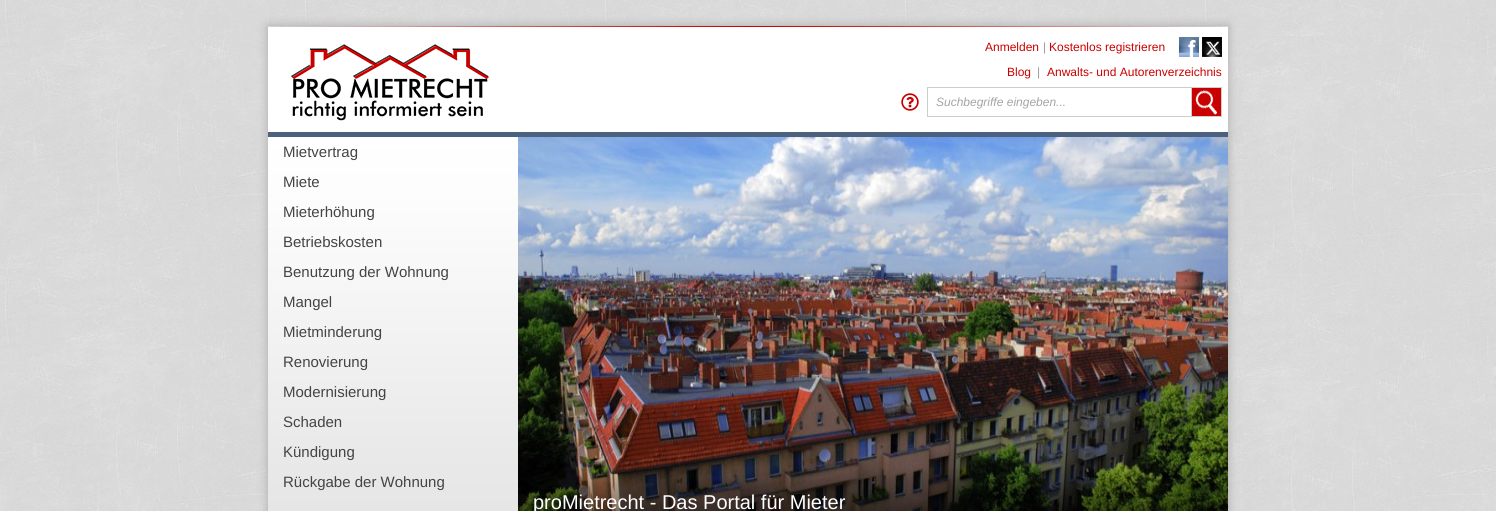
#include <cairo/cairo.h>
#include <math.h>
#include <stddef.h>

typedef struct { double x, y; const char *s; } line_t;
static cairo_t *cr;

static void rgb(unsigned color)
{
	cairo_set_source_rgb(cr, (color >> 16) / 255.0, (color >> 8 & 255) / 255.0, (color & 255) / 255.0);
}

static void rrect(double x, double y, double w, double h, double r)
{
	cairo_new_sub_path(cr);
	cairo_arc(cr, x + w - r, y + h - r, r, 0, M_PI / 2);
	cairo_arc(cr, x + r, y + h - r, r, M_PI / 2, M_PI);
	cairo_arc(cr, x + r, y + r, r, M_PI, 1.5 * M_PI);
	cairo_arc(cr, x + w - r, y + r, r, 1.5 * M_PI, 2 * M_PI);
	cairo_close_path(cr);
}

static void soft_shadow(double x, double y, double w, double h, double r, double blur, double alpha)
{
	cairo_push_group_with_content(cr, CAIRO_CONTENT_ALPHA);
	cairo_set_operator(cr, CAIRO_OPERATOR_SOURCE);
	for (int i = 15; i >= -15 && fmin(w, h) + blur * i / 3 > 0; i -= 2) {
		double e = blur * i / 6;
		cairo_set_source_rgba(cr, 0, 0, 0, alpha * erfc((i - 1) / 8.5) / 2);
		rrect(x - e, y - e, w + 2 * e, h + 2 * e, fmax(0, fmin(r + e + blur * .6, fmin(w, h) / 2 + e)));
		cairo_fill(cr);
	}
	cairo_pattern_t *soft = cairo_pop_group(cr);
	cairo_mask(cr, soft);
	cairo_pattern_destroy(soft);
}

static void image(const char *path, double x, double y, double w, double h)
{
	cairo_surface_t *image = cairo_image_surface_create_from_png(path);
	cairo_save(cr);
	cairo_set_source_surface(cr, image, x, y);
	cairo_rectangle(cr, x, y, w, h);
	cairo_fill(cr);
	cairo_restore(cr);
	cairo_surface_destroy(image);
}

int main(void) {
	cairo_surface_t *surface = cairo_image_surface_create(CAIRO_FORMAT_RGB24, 1496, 511);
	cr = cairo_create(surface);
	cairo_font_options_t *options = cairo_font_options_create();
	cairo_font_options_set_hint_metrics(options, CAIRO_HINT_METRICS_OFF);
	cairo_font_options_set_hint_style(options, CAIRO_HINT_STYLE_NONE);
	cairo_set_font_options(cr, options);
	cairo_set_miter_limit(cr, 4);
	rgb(0xffffff);
	cairo_paint(cr);
	image("img/1.png", 0, 0, 1496, 511);
	rgb(0xaaaaaa);
	soft_shadow(268, 26, 960, 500, 0, 5, 1);
	image("img/2.png", 268, 26, 960, 1);
	rgb(0xffffff);
	cairo_rectangle(cr, 268, 27, 960, 105);
	cairo_fill(cr);
	image("img/3.png", 291, 44, 198, 77);
	image("img/4.png", 1179, 37, 20, 20);
	image("img/5.png", 1202, 37, 20, 20);
	image("img/6.png", 901, 93, 18, 18);
	cairo_rectangle(cr, 927.5, 87.5, 294, 29);
	rgb(0xcdcdcd);
	cairo_set_line_width(cr, 1);
	cairo_stroke(cr);
	cairo_rectangle(cr, 1191.5, 87.5, 30, 29);
	cairo_stroke(cr);
	image("img/7.png", 1192, 88, 29, 28);
	rgb(0x4c617d);
	cairo_rectangle(cr, 268, 132, 960, 5);
	cairo_fill(cr);
	image("img/8.png", 268, 137, 250, 374);
	image("img/9.png", 518, 137, 710, 374);
	image("img/10.png", 1243, 36, 160, 475);
	cairo_select_font_face(cr, "Liberation Sans", CAIRO_FONT_SLANT_NORMAL, CAIRO_FONT_WEIGHT_NORMAL);
	cairo_set_font_size(cr, 12);
	rgb(0xca0000);
	cairo_move_to(cr, 985, 51);
	cairo_show_text(cr, "Anmelden");
	rgb(0x999999);
	cairo_move_to(cr, 1043, 51);
	cairo_show_text(cr, "|");
	rgb(0xca0000);
	cairo_move_to(cr, 1049, 51);
	cairo_show_text(cr, "Kostenlos registrieren");
	cairo_move_to(cr, 1007, 76);
	cairo_show_text(cr, "Blog");
	rgb(0x999999);
	cairo_move_to(cr, 1037, 76);
	cairo_show_text(cr, "|");
	rgb(0xca0000);
	cairo_move_to(cr, 1047, 76);
	cairo_show_text(cr, "Anwalts- und Autorenverzeichnis");
	cairo_select_font_face(cr, "Liberation Sans", CAIRO_FONT_SLANT_ITALIC, CAIRO_FONT_WEIGHT_NORMAL);
	rgb(0xa4a4a4);
	cairo_move_to(cr, 936, 106);
	cairo_show_text(cr, "Suchbegriffe eingeben...");
	cairo_select_font_face(cr, "Liberation Sans", CAIRO_FONT_SLANT_NORMAL, CAIRO_FONT_WEIGHT_NORMAL);
	cairo_set_font_size(cr, 15);
	rgb(0x444444);
	{
		static const line_t items[] = {
			{283, 157, "Mietvertrag"},
			{283, 187, "Miete"},
			{283, 217, "Mieterhöhung"},
			{283, 247, "Betriebskosten"},
			{283, 277, "Benutzung der Wohnung"},
			{283, 307, "Mangel"},
			{283, 337, "Mietminderung"},
			{283, 367, "Renovierung"},
			{283, 397, "Modernisierung"},
			{283, 427, "Schaden"},
			{283, 457, "Kündigung"},
			{283, 487, "Rückgabe der Wohnung"},
		};
		for (size_t i = 0; i < sizeof items / sizeof *items; i++) {
			cairo_move_to(cr, items[i].x, items[i].y);
			cairo_show_text(cr, items[i].s);
		}
	}
	cairo_set_font_size(cr, 20);
	rgb(0xffffff);
	cairo_move_to(cr, 533, 509);
	cairo_show_text(cr, "proMietrecht - Das Portal für Mieter");
	cairo_surface_write_to_png(surface, "page.png");
	cairo_font_options_destroy(options);
	cairo_destroy(cr);
	cairo_surface_destroy(surface);
	return 0;
}
